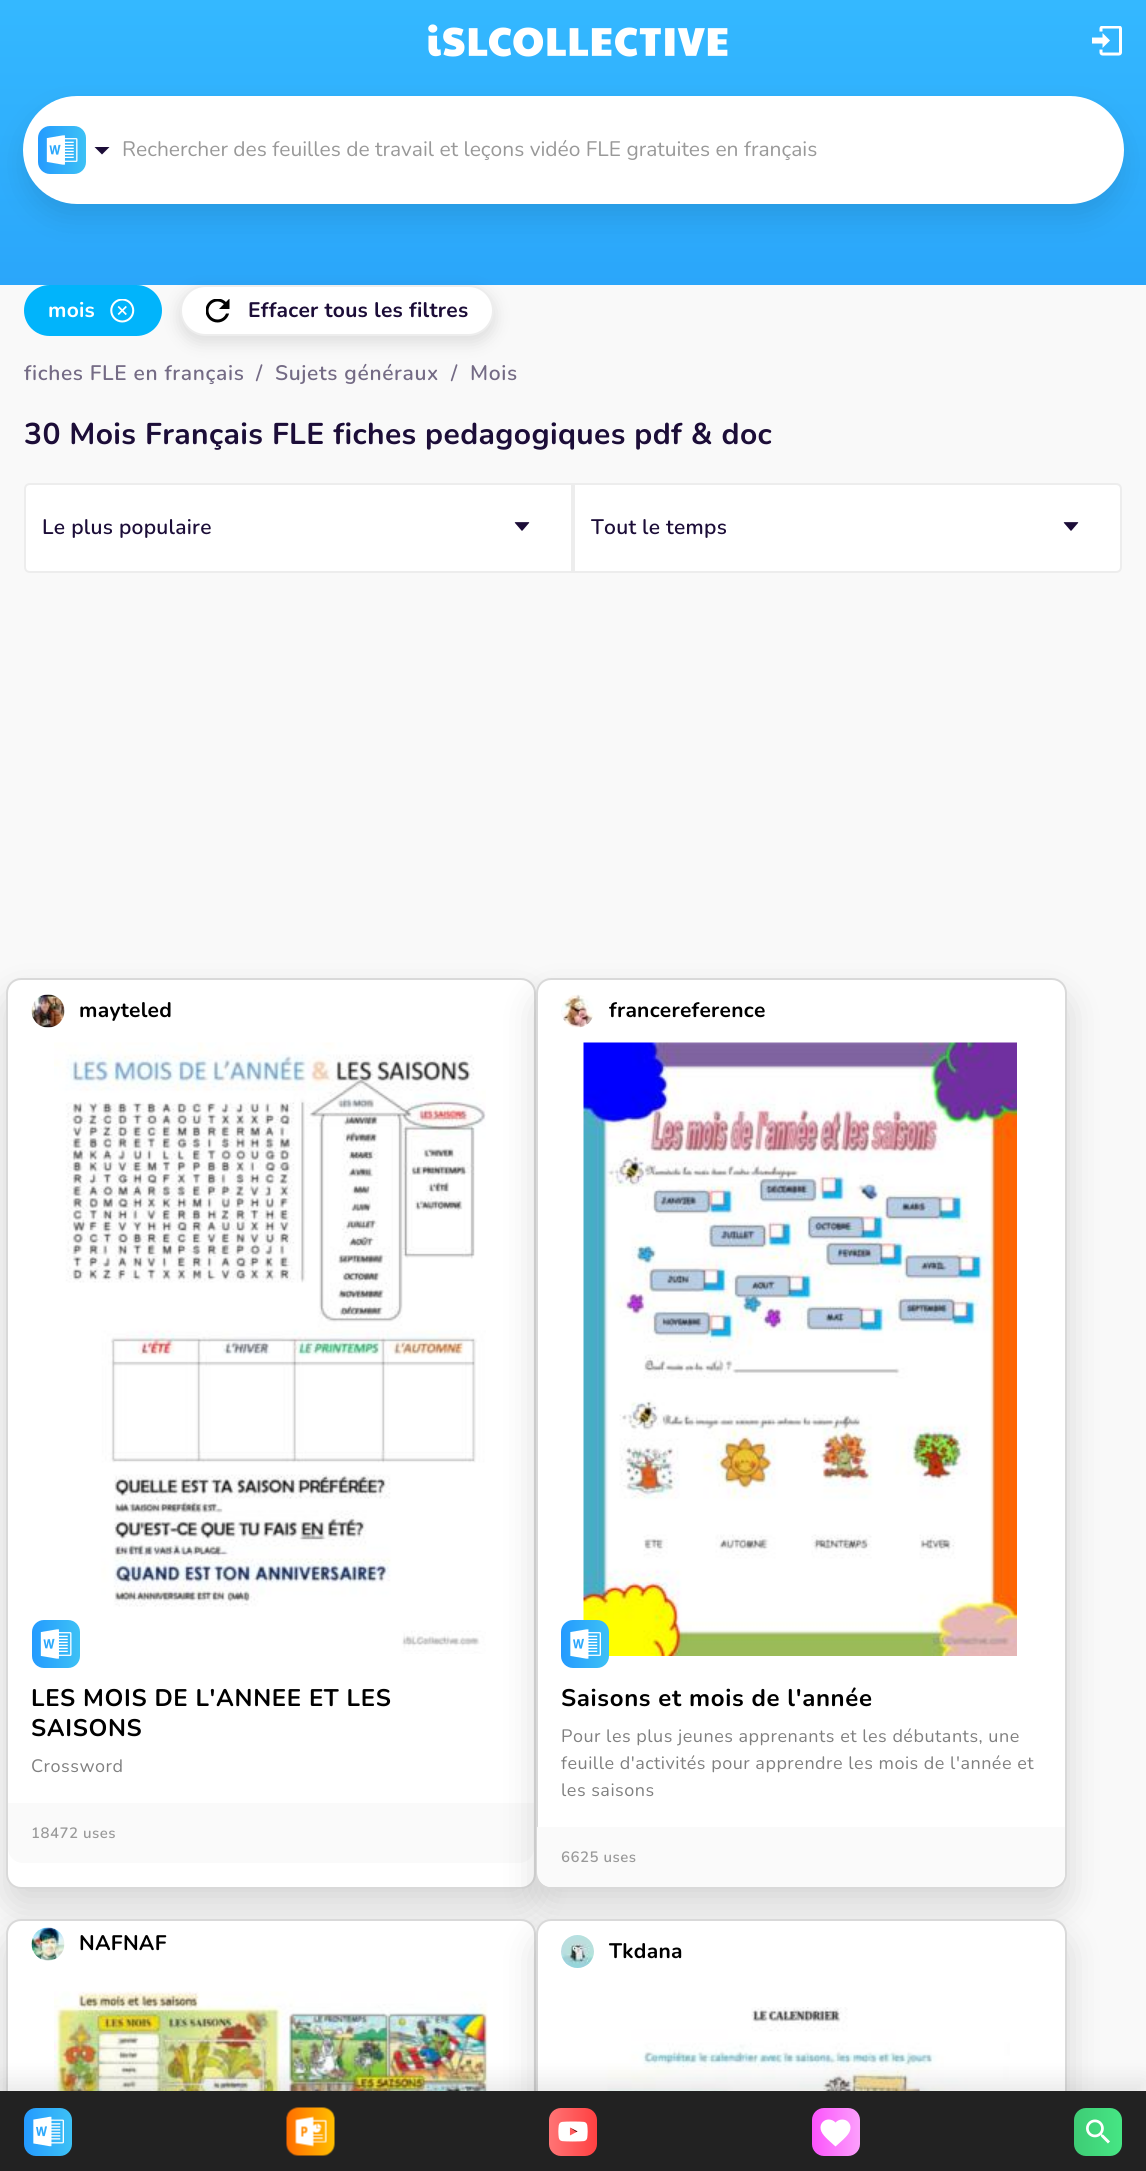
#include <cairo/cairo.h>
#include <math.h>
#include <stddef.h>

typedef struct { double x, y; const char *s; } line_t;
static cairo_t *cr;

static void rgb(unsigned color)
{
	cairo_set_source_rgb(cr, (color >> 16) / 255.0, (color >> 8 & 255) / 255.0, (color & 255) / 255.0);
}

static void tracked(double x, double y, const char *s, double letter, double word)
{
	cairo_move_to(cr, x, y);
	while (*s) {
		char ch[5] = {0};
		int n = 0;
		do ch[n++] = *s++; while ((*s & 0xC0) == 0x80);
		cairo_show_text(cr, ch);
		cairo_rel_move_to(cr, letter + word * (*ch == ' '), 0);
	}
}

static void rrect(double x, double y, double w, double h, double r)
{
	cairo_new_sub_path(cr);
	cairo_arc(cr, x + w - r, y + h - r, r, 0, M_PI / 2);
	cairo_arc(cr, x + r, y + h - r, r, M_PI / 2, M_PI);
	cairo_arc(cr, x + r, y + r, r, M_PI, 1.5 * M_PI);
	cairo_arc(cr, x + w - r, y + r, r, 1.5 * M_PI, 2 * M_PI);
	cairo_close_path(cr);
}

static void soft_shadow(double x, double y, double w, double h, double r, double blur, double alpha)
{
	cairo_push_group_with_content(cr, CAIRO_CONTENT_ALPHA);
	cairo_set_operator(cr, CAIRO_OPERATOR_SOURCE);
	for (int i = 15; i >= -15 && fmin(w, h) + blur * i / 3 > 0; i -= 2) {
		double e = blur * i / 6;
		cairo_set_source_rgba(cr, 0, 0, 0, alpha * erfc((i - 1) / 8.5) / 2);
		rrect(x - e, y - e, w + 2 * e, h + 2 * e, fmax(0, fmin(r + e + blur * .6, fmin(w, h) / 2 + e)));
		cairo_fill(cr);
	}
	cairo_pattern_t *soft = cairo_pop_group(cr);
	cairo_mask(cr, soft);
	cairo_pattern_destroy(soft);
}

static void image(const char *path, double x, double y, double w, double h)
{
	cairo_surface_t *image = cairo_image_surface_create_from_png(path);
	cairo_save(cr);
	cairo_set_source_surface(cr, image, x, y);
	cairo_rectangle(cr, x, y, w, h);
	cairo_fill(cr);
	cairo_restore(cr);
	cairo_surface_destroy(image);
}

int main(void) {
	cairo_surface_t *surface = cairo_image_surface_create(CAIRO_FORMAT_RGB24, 1146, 2171);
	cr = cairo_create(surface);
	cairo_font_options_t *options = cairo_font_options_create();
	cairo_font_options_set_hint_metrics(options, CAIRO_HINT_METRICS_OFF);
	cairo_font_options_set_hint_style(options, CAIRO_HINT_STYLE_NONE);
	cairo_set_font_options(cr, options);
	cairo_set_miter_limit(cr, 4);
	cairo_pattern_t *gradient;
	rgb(0xf9f9f9);
	cairo_paint(cr);
	cairo_save(cr);
	cairo_rectangle(cr, 0, 0, 1146, 285);
	cairo_clip(cr);
	gradient = cairo_pattern_create_linear(573, 0, 573, 572);
	cairo_pattern_add_color_stop_rgba(gradient, 0, 0.204, 0.722, 1, 1);
	cairo_pattern_add_color_stop_rgba(gradient, 1, 0.129, 0.58, 0.961, 1);
	cairo_set_source(cr, gradient);
	cairo_pattern_destroy(gradient);
	cairo_set_fill_rule(cr, CAIRO_FILL_RULE_EVEN_ODD);
	cairo_new_path(cr);
	cairo_move_to(cr, 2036, 0);
	cairo_line_to(cr, 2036, 449);
	cairo_curve_to(cr, 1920, 509, 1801, 568, 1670, 571);
	cairo_curve_to(cr, 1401, 577, 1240, 455, 593, 452);
	cairo_line_to(cr, 573, 452);
	cairo_curve_to(cr, -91, 452, -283, 327, -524, 322);
	cairo_curve_to(cr, -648, 320, -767, 384, -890, 449);
	cairo_line_to(cr, -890, 0);
	cairo_close_path(cr);
	cairo_fill(cr);
	cairo_restore(cr);
	image("img/1.png", 428, 24, 300, 33);
	image("img/2.png", 1092, 26, 30, 30);
	rgb(0x000000);
	soft_shadow(23, 110, 1101, 108, 54, 13.5, 0.1);
	rgb(0xffffff);
	rrect(23, 96, 1101, 108, 54);
	cairo_fill(cr);
	image("img/3.png", 38, 126, 48, 48);
	rgb(0x1c0d38);
	cairo_new_path(cr);
	cairo_move_to(cr, 94.5, 147);
	cairo_line_to(cr, 102, 154.5);
	cairo_line_to(cr, 109.5, 147);
	cairo_close_path(cr);
	cairo_fill(cr);
	rgb(0x01b4fb);
	rrect(24, 285, 138, 51, 25.5);
	cairo_fill(cr);
	image("img/4.png", 110, 299, 25, 24);
	rgb(0x000000);
	soft_shadow(180, 291, 314, 51, 25.5, 9, 0.12);
	rgb(0xffffff);
	rrect(181, 286, 312, 49, 24.5);
	cairo_fill_preserve(cr);
	rgb(0xededed);
	cairo_stroke(cr);
	image("img/5.png", 206, 299, 24, 24);
	rgb(0xffffff);
	cairo_new_path(cr);
	cairo_move_to(cr, 30, 484);
	cairo_line_to(cr, 572, 484);
	cairo_line_to(cr, 572, 572);
	cairo_line_to(cr, 30, 572);
	cairo_curve_to(cr, 27, 572, 25, 570, 25, 567);
	cairo_line_to(cr, 25, 489);
	cairo_curve_to(cr, 25, 486, 27, 484, 30, 484);
	cairo_close_path(cr);
	cairo_fill_preserve(cr);
	rgb(0xededed);
	cairo_stroke(cr);
	image("img/6.png", 514, 522, 16, 9);
	rgb(0xffffff);
	cairo_new_path(cr);
	cairo_move_to(cr, 574, 484);
	cairo_line_to(cr, 1116, 484);
	cairo_curve_to(cr, 1119, 484, 1121, 486, 1121, 489);
	cairo_line_to(cr, 1121, 567);
	cairo_curve_to(cr, 1121, 570, 1119, 572, 1116, 572);
	cairo_line_to(cr, 574, 572);
	cairo_close_path(cr);
	cairo_fill_preserve(cr);
	rgb(0xededed);
	cairo_stroke(cr);
	image("img/6.png", 1063, 522, 16, 9);
	rgb(0x000000);
	soft_shadow(6, 996, 530, 911, 15, 18, 0.14);
	rgb(0xffffff);
	rrect(7, 979, 528, 909, 14);
	cairo_fill_preserve(cr);
	rgb(0xd9d9d9);
	cairo_stroke(cr);
	image("img/7.png", 31, 994, 34, 34);
	rgb(0xfafafa);
	cairo_new_path(cr);
	cairo_move_to(cr, 8, 1803);
	cairo_line_to(cr, 534, 1803);
	cairo_line_to(cr, 534, 1848);
	cairo_curve_to(cr, 534, 1856.5, 527.5, 1863, 519, 1863);
	cairo_line_to(cr, 23, 1863);
	cairo_curve_to(cr, 14.5, 1863, 8, 1856.5, 8, 1848);
	cairo_close_path(cr);
	cairo_fill(cr);
	rgb(0x000000);
	soft_shadow(536, 996, 531, 911, 15, 18, 0.14);
	image("img/8.png", 54, 1042, 432, 612);
	image("img/3.png", 32, 1620, 48, 48);
	rgb(0xffffff);
	rrect(537, 979, 529, 909, 14);
	cairo_fill_preserve(cr);
	rgb(0xd9d9d9);
	cairo_stroke(cr);
	image("img/9.png", 561, 994, 33, 34);
	image("img/10.png", 583, 1042, 434, 614);
	image("img/11.png", 561, 1620, 48, 48);
	rgb(0xfafafa);
	cairo_new_path(cr);
	cairo_move_to(cr, 537, 1827);
	cairo_line_to(cr, 1065, 1827);
	cairo_line_to(cr, 1065, 1872);
	cairo_curve_to(cr, 1065, 1880.5, 1058.5, 1887, 1050, 1887);
	cairo_line_to(cr, 552, 1887);
	cairo_curve_to(cr, 543.5, 1887, 537, 1880.5, 537, 1872);
	cairo_close_path(cr);
	cairo_fill(cr);
	rgb(0x000000);
	soft_shadow(6, 1937, 530, 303, 15, 18, 0.14);
	rgb(0xffffff);
	rrect(7, 1920, 528, 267, 14);
	cairo_fill_preserve(cr);
	rgb(0xd9d9d9);
	cairo_stroke(cr);
	image("img/12.png", 31, 1927, 34, 34);
	rgb(0x000000);
	soft_shadow(536, 1937, 531, 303, 15, 18, 0.14);
	image("img/13.png", 54, 1991, 434, 100);
	rgb(0xffffff);
	rrect(537, 1920, 529, 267, 14);
	cairo_fill_preserve(cr);
	rgb(0xd9d9d9);
	cairo_stroke(cr);
	image("img/14.png", 561, 1935, 33, 33);
	image("img/15.png", 584, 2007, 426, 84);
	rgb(0x000000);
	soft_shadow(0, 2079, 1146, 81, 0, 10.5, 0.08);
	rgb(0x222222);
	cairo_rectangle(cr, 0, 2091, 1146, 80);
	cairo_fill(cr);
	image("img/16.png", 24, 2108, 48, 48);
	image("img/17.png", 286, 2107, 49, 49);
	image("img/18.png", 549, 2108, 48, 48);
	image("img/19.png", 812, 2108, 48, 48);
	image("img/20.png", 1074, 2108, 48, 48);
	cairo_select_font_face(cr, "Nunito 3 ExtraLight", CAIRO_FONT_SLANT_NORMAL, CAIRO_FONT_WEIGHT_NORMAL);
	cairo_set_font_size(cr, 21);
	rgb(0x999999);
	cairo_move_to(cr, 122, 156);
	cairo_show_text(cr, "Rechercher des feuilles de travail et leçons vidéo FLE gratuites en français");
	cairo_select_font_face(cr, "Nunito ExtraLight", CAIRO_FONT_SLANT_NORMAL, CAIRO_FONT_WEIGHT_NORMAL);
	rgb(0xffffff);
	tracked(48, 317, "mois", 0.25, 0);
	rgb(0x1c0d38);
	tracked(248, 317, "Effacer tous les filtres", 0.25, 0);
	cairo_select_font_face(cr, "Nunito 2 ExtraLight", CAIRO_FONT_SLANT_NORMAL, CAIRO_FONT_WEIGHT_NORMAL);
	rgb(0x746b85);
	{
		static const line_t items[] = {
			{24, 380, "fiches FLE en français"},
			{256, 380, "/"},
			{275, 380, "Sujets généraux"},
			{451, 380, "/"},
			{470, 380, "Mois"},
		};
		for (size_t i = 0; i < sizeof items / sizeof *items; i++) {
			tracked(items[i].x, items[i].y, items[i].s, 0.65, 0);
		}
	}
	cairo_select_font_face(cr, "Nunito ExtraLight", CAIRO_FONT_SLANT_NORMAL, CAIRO_FONT_WEIGHT_NORMAL);
	cairo_set_font_size(cr, 30);
	rgb(0x1c0d38);
	tracked(24, 444, "30 Mois Français FLE fiches pedagogiques pdf & doc", 0.38, 0);
	cairo_select_font_face(cr, "Nunito 2 ExtraLight", CAIRO_FONT_SLANT_NORMAL, CAIRO_FONT_WEIGHT_NORMAL);
	cairo_set_font_size(cr, 21);
	tracked(42, 534, "Le plus populaire", 0.25, 0);
	tracked(591, 534, "Tout le temps", 0.25, 0);
	cairo_select_font_face(cr, "Nunito ExtraLight", CAIRO_FONT_SLANT_NORMAL, CAIRO_FONT_WEIGHT_NORMAL);
	rgb(0x000000);
	tracked(79, 1017, "mayteled", 0.25, 0);
	cairo_set_font_size(cr, 24);
	tracked(31, 1706, "LES MOIS DE L'ANNEE ET LES", 0.65, 0);
	tracked(31, 1736, "SAISONS", 0.65, 0);
	cairo_save(cr);
	cairo_rectangle(cr, 32, 1743, 478, 60);
	cairo_clip(cr);
	cairo_select_font_face(cr, "Nunito 3 ExtraLight", CAIRO_FONT_SLANT_NORMAL, CAIRO_FONT_WEIGHT_NORMAL);
	cairo_set_font_size(cr, 18);
	rgb(0x808080);
	tracked(31, 1772, "Crossword", 0.5, 0);
	cairo_restore(cr);
	cairo_select_font_face(cr, "Nunito 2 ExtraLight", CAIRO_FONT_SLANT_NORMAL, CAIRO_FONT_WEIGHT_NORMAL);
	cairo_set_font_size(cr, 15);
	rgb(0x999999);
	tracked(31, 1838, "18472 uses", 0.5, 0);
	cairo_select_font_face(cr, "Nunito ExtraLight", CAIRO_FONT_SLANT_NORMAL, CAIRO_FONT_WEIGHT_NORMAL);
	cairo_set_font_size(cr, 21);
	rgb(0x000000);
	tracked(609, 1017, "francereference", 0.25, 0);
	cairo_set_font_size(cr, 24);
	tracked(561, 1706, "Saisons et mois de l'année", 0.65, 0);
	cairo_select_font_face(cr, "Nunito 3 ExtraLight", CAIRO_FONT_SLANT_NORMAL, CAIRO_FONT_WEIGHT_NORMAL);
	cairo_set_font_size(cr, 18);
	rgb(0x808080);
	{
		static const line_t items[] = {
			{561, 1742, "Pour les plus jeunes apprenants et les débutants, une"},
			{561, 1769, "feuille d'activités pour apprendre les mois de l'année et"},
			{561, 1796, "les saisons"},
		};
		for (size_t i = 0; i < sizeof items / sizeof *items; i++) {
			tracked(items[i].x, items[i].y, items[i].s, 0.5, 0);
		}
	}
	cairo_select_font_face(cr, "Nunito 2 ExtraLight", CAIRO_FONT_SLANT_NORMAL, CAIRO_FONT_WEIGHT_NORMAL);
	cairo_set_font_size(cr, 15);
	rgb(0x999999);
	tracked(561, 1862, "6625 uses", 0.5, 0);
	cairo_select_font_face(cr, "Nunito ExtraLight", CAIRO_FONT_SLANT_NORMAL, CAIRO_FONT_WEIGHT_NORMAL);
	cairo_set_font_size(cr, 21);
	rgb(0x000000);
	tracked(79, 1950, "NAFNAF", 0.25, 0);
	tracked(609, 1958, "Tkdana", 0.25, 0);
	cairo_surface_write_to_png(surface, "page.png");
	cairo_font_options_destroy(options);
	cairo_destroy(cr);
	cairo_surface_destroy(surface);
	return 0;
}
